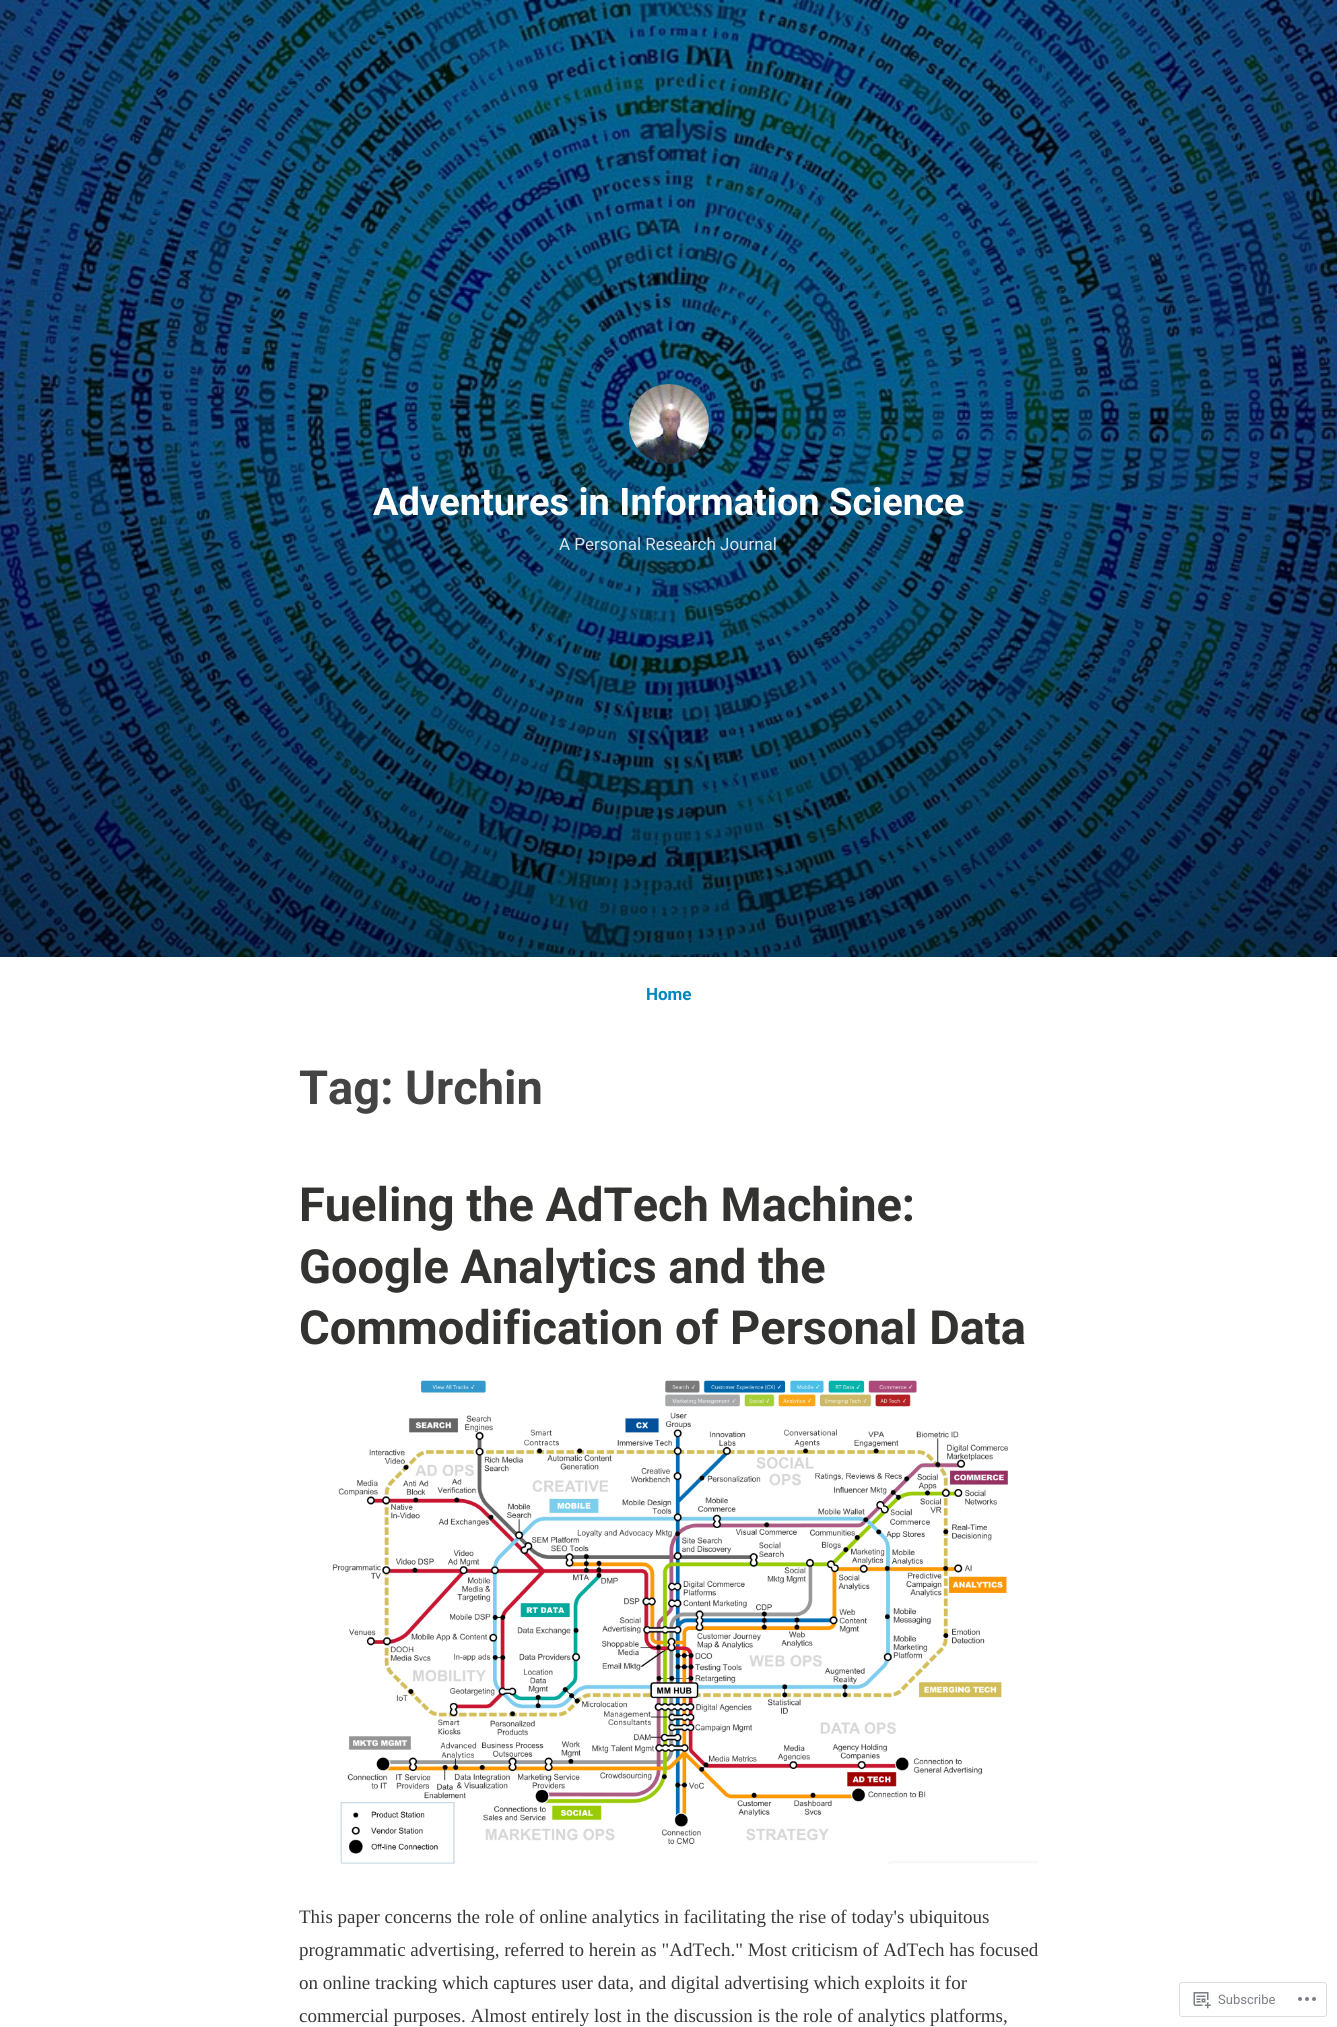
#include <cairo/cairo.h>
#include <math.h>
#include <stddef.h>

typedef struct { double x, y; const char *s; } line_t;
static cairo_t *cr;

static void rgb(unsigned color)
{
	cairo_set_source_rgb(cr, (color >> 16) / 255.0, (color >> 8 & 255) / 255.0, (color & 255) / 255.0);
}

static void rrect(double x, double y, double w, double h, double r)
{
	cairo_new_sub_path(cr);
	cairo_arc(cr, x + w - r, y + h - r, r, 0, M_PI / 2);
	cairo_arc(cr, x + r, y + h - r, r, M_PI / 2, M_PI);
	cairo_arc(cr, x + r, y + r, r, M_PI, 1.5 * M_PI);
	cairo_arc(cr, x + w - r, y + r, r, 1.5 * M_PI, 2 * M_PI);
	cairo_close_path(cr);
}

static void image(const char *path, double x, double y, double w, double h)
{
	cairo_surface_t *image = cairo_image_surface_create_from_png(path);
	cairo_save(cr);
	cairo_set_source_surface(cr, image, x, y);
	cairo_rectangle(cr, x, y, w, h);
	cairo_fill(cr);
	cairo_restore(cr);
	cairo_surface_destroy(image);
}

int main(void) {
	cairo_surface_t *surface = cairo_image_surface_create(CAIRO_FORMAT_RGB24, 1337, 2027);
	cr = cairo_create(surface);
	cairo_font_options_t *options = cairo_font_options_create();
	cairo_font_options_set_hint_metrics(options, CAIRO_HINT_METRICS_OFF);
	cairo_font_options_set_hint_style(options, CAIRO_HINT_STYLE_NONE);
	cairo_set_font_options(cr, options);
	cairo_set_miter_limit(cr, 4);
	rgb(0xffffff);
	cairo_paint(cr);
	image("img/1.png", 0, 0, 1337, 957);
	image("img/2.png", 629, 384, 80, 80);
	image("img/3.png", 332, 1380, 707, 484);
	rrect(1179.5, 1982.5, 147, 34, 2.5);
	rgb(0xdddddf);
	cairo_set_line_width(cr, 1);
	cairo_stroke(cr);
	image("img/4.png", 1193, 1992, 18, 17);
	image("img/5.png", 1298, 1997, 18, 4);
	cairo_select_font_face(cr, "Roboto", CAIRO_FONT_SLANT_NORMAL, CAIRO_FONT_WEIGHT_BOLD);
	cairo_set_font_size(cr, 38);
	rgb(0xffffff);
	cairo_move_to(cr, 373, 515);
	cairo_show_text(cr, "Adventures in Information Science");
	cairo_select_font_face(cr, "Roboto", CAIRO_FONT_SLANT_NORMAL, CAIRO_FONT_WEIGHT_NORMAL);
	cairo_set_font_size(cr, 17);
	rgb(0xd7e3ea);
	cairo_move_to(cr, 559, 550);
	cairo_show_text(cr, "A Personal Research Journal");
	cairo_select_font_face(cr, "Roboto", CAIRO_FONT_SLANT_NORMAL, CAIRO_FONT_WEIGHT_BOLD);
	rgb(0x0087be);
	cairo_move_to(cr, 646, 1000);
	cairo_show_text(cr, "Home");
	cairo_set_font_size(cr, 47);
	rgb(0x444444);
	cairo_move_to(cr, 299, 1104);
	cairo_show_text(cr, "Tag: Urchin");
	rgb(0x333332);
	{
		static const line_t items[] = {
			{299, 1221, "Fueling the AdTech Machine:"},
			{299, 1283, "Google Analytics and the"},
			{299, 1344, "Commodification of Personal Data"},
		};
		for (size_t i = 0; i < sizeof items / sizeof *items; i++) {
			cairo_move_to(cr, items[i].x, items[i].y);
			cairo_show_text(cr, items[i].s);
		}
	}
	cairo_select_font_face(cr, "Liberation Serif", CAIRO_FONT_SLANT_NORMAL, CAIRO_FONT_WEIGHT_NORMAL);
	cairo_set_font_size(cr, 19);
	rgb(0x383838);
	{
		static const line_t items[] = {
			{299, 1923, "This paper concerns the role of online analytics in facilitating the rise of today's ubiquitous"},
			{299, 1956, "programmatic advertising, referred to herein as \"AdTech.\" Most criticism of AdTech has focused"},
			{299, 1989, "on online tracking which captures user data, and digital advertising which exploits it for"},
			{299, 2022, "commercial purposes. Almost entirely lost in the discussion is the role of analytics platforms,"},
		};
		for (size_t i = 0; i < sizeof items / sizeof *items; i++) {
			cairo_move_to(cr, items[i].x, items[i].y);
			cairo_show_text(cr, items[i].s);
		}
	}
	cairo_select_font_face(cr, "Roboto", CAIRO_FONT_SLANT_NORMAL, CAIRO_FONT_WEIGHT_NORMAL);
	cairo_set_font_size(cr, 13);
	rgb(0x7b7f85);
	cairo_move_to(cr, 1218, 2004);
	cairo_show_text(cr, "Subscribe");
	cairo_surface_write_to_png(surface, "page.png");
	cairo_font_options_destroy(options);
	cairo_destroy(cr);
	cairo_surface_destroy(surface);
	return 0;
}
